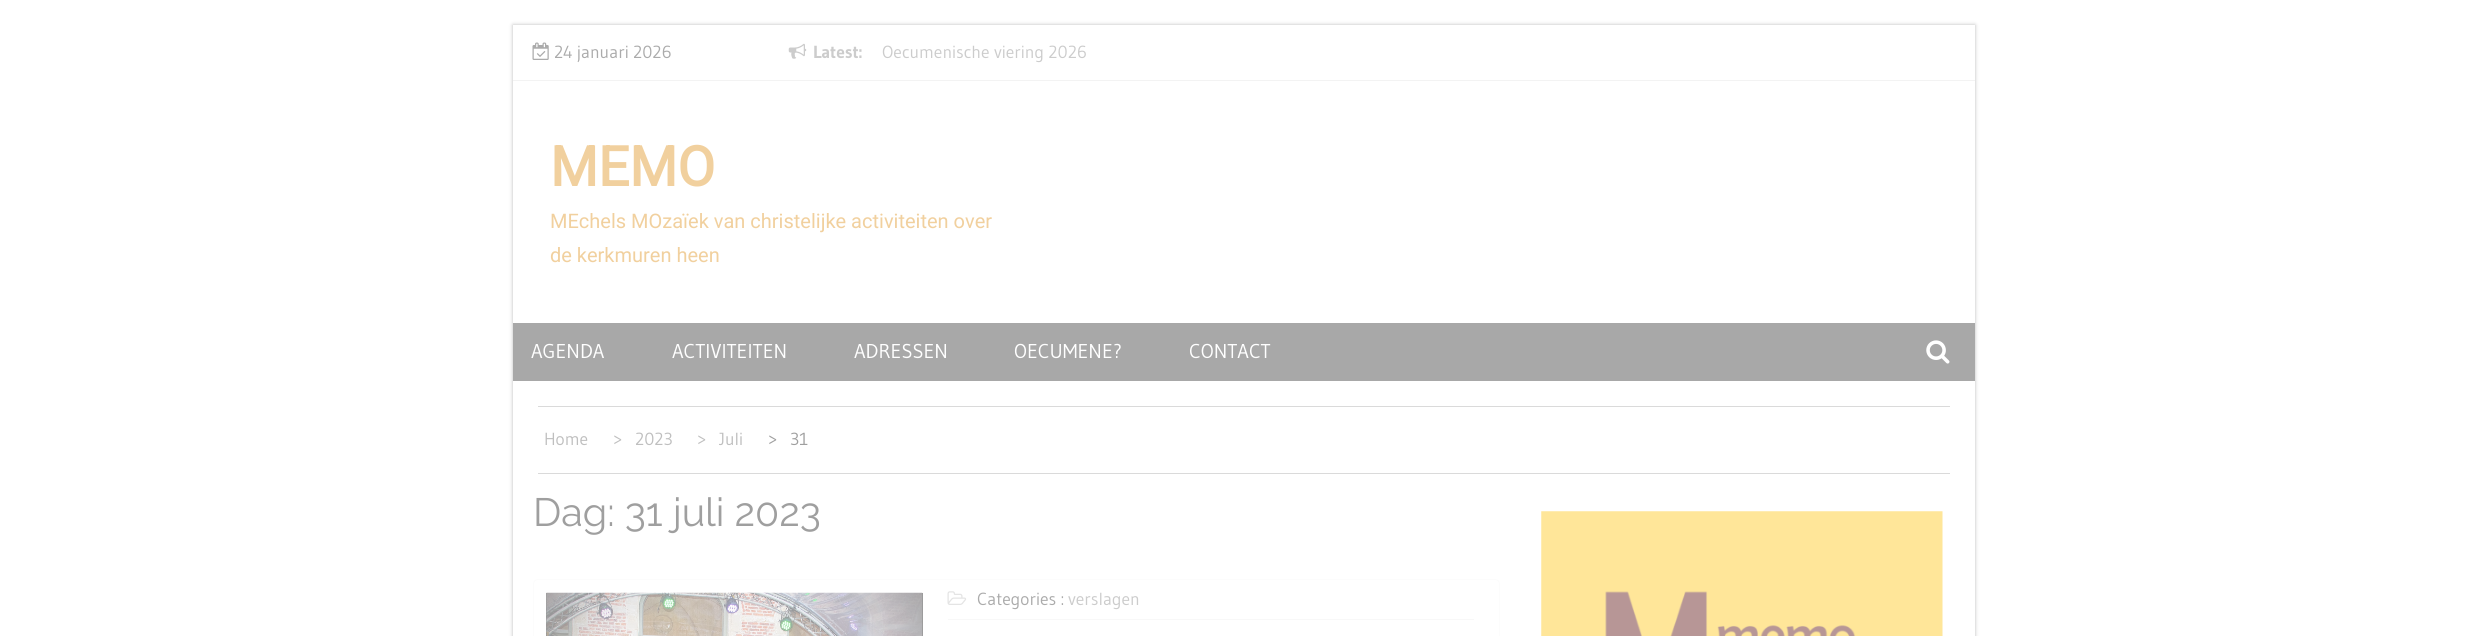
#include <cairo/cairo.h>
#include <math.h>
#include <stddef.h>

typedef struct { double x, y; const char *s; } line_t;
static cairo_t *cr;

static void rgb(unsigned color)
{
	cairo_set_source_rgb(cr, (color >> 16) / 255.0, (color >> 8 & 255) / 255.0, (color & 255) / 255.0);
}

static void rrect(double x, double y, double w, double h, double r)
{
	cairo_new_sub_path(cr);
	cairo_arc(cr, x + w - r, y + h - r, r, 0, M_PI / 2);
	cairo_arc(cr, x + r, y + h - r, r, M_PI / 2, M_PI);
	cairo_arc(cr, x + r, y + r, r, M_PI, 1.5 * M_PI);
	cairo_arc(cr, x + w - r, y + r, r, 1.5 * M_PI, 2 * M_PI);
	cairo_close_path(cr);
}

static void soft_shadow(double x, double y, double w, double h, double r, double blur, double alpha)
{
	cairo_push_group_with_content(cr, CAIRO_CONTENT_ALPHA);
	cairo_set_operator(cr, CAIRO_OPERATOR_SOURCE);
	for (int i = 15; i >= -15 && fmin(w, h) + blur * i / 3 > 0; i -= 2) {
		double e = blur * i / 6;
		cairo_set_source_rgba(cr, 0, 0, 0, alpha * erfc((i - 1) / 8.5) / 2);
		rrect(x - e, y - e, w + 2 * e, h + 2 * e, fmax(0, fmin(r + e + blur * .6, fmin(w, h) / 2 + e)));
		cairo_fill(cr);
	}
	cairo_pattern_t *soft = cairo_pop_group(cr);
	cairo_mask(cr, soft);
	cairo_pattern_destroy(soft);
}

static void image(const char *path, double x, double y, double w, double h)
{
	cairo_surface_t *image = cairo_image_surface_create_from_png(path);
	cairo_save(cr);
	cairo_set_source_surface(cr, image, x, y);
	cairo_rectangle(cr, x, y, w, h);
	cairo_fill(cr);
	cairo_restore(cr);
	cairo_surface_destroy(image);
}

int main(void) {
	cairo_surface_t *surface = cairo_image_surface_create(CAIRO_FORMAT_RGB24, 2487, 636);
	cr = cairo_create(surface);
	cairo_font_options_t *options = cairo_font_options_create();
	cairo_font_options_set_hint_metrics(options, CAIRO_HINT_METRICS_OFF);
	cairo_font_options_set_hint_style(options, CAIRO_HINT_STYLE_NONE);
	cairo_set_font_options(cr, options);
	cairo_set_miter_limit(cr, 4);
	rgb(0xffffff);
	cairo_paint(cr);
	cairo_save(cr);
	cairo_set_fill_rule(cr, CAIRO_FILL_RULE_EVEN_ODD);
	cairo_new_path(cr);
	cairo_move_to(cr, 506, 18);
	cairo_line_to(cr, 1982, 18);
	cairo_line_to(cr, 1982, 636);
	cairo_line_to(cr, 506, 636);
	cairo_close_path(cr);
	cairo_move_to(cr, 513, 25);
	cairo_line_to(cr, 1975, 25);
	cairo_line_to(cr, 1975, 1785);
	cairo_line_to(cr, 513, 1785);
	cairo_close_path(cr);
	cairo_clip(cr);
	rgb(0xbbbbbb);
	soft_shadow(513, 25, 1462, 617, 0, 2, 1);
	cairo_restore(cr);
	rgb(0xf3f3f3);
	cairo_rectangle(cr, 513, 80, 1462, 1);
	cairo_fill(cr);
	image("img/1.png", 532, 42, 17, 18);
	image("img/2.png", 788, 43, 19, 16);
	rgb(0xa8a8a8);
	cairo_rectangle(cr, 513, 323, 1462, 58);
	cairo_fill(cr);
	image("img/3.png", 1926, 340, 24, 24);
	rgb(0xdadada);
	cairo_rectangle(cr, 538, 406, 1412, 1);
	cairo_fill(cr);
	cairo_rectangle(cr, 538, 473, 1412, 1);
	cairo_fill(cr);
	rrect(533.5, 579.5, 966, 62, 4.5);
	rgb(0xfcfcfc);
	cairo_set_line_width(cr, 1);
	cairo_stroke(cr);
	rgb(0x969696);
	cairo_rectangle(cr, 546, 593, 377, 43);
	cairo_fill(cr);
	image("img/4.png", 546, 592, 377, 44);
	rgb(0xf8f8f8);
	cairo_rectangle(cr, 948, 619, 526, 1);
	cairo_fill(cr);
	image("img/5.png", 947, 591, 20, 14);
	image("img/6.png", 1541, 511, 402, 125);
	cairo_select_font_face(cr, "Gudea", CAIRO_FONT_SLANT_NORMAL, CAIRO_FONT_WEIGHT_NORMAL);
	cairo_set_font_size(cr, 17.5);
	rgb(0xababab);
	cairo_move_to(cr, 554, 58);
	cairo_show_text(cr, "24 januari 2026");
	cairo_select_font_face(cr, "Gudea", CAIRO_FONT_SLANT_NORMAL, CAIRO_FONT_WEIGHT_BOLD);
	rgb(0xcccccc);
	cairo_move_to(cr, 813, 58);
	cairo_show_text(cr, "Latest:");
	cairo_select_font_face(cr, "Gudea", CAIRO_FONT_SLANT_NORMAL, CAIRO_FONT_WEIGHT_NORMAL);
	cairo_move_to(cr, 882, 58);
	cairo_show_text(cr, "Oecumenische viering 2026");
	cairo_select_font_face(cr, "Roboto", CAIRO_FONT_SLANT_NORMAL, CAIRO_FONT_WEIGHT_BOLD);
	cairo_set_font_size(cr, 55);
	rgb(0xf1d09e);
	cairo_move_to(cr, 550, 186);
	cairo_show_text(cr, "MEMO");
	cairo_select_font_face(cr, "Roboto", CAIRO_FONT_SLANT_NORMAL, CAIRO_FONT_WEIGHT_NORMAL);
	cairo_set_font_size(cr, 20);
	cairo_move_to(cr, 550, 228);
	cairo_show_text(cr, "MEchels MOzaïek van christelijke activiteiten over");
	cairo_move_to(cr, 550, 262);
	cairo_show_text(cr, "de kerkmuren heen");
	cairo_select_font_face(cr, "Gudea", CAIRO_FONT_SLANT_NORMAL, CAIRO_FONT_WEIGHT_NORMAL);
	rgb(0xffffff);
	{
		static const line_t items[] = {
			{531, 358, "AGENDA"},
			{672, 358, "ACTIVITEITEN"},
			{854, 358, "ADRESSEN"},
			{1014, 358, "OECUMENE?"},
			{1189, 358, "CONTACT"},
		};
		for (size_t i = 0; i < sizeof items / sizeof *items; i++) {
			cairo_move_to(cr, items[i].x, items[i].y);
			cairo_show_text(cr, items[i].s);
		}
	}
	cairo_set_font_size(cr, 17.5);
	rgb(0xbfbfbf);
	{
		static const line_t items[] = {
			{544, 445, "Home"},
			{613, 445, ">"},
			{635, 445, "2023"},
			{697, 445, ">"},
			{719, 445, "Juli"},
		};
		for (size_t i = 0; i < sizeof items / sizeof *items; i++) {
			cairo_move_to(cr, items[i].x, items[i].y);
			cairo_show_text(cr, items[i].s);
		}
	}
	rgb(0x9f9f9f);
	cairo_move_to(cr, 768, 445);
	cairo_show_text(cr, ">");
	cairo_move_to(cr, 790, 445);
	cairo_show_text(cr, "31");
	cairo_select_font_face(cr, "Raleway", CAIRO_FONT_SLANT_NORMAL, CAIRO_FONT_WEIGHT_NORMAL);
	cairo_set_font_size(cr, 39.5);
	cairo_move_to(cr, 533, 526);
	cairo_show_text(cr, "Dag: 31 juli 2023");
	cairo_select_font_face(cr, "Gudea", CAIRO_FONT_SLANT_NORMAL, CAIRO_FONT_WEIGHT_NORMAL);
	cairo_set_font_size(cr, 17.5);
	rgb(0xababab);
	cairo_move_to(cr, 977, 605);
	cairo_show_text(cr, "Categories :");
	rgb(0xcccccc);
	cairo_move_to(cr, 1068, 605);
	cairo_show_text(cr, "verslagen");
	cairo_surface_write_to_png(surface, "page.png");
	cairo_font_options_destroy(options);
	cairo_destroy(cr);
	cairo_surface_destroy(surface);
	return 0;
}
